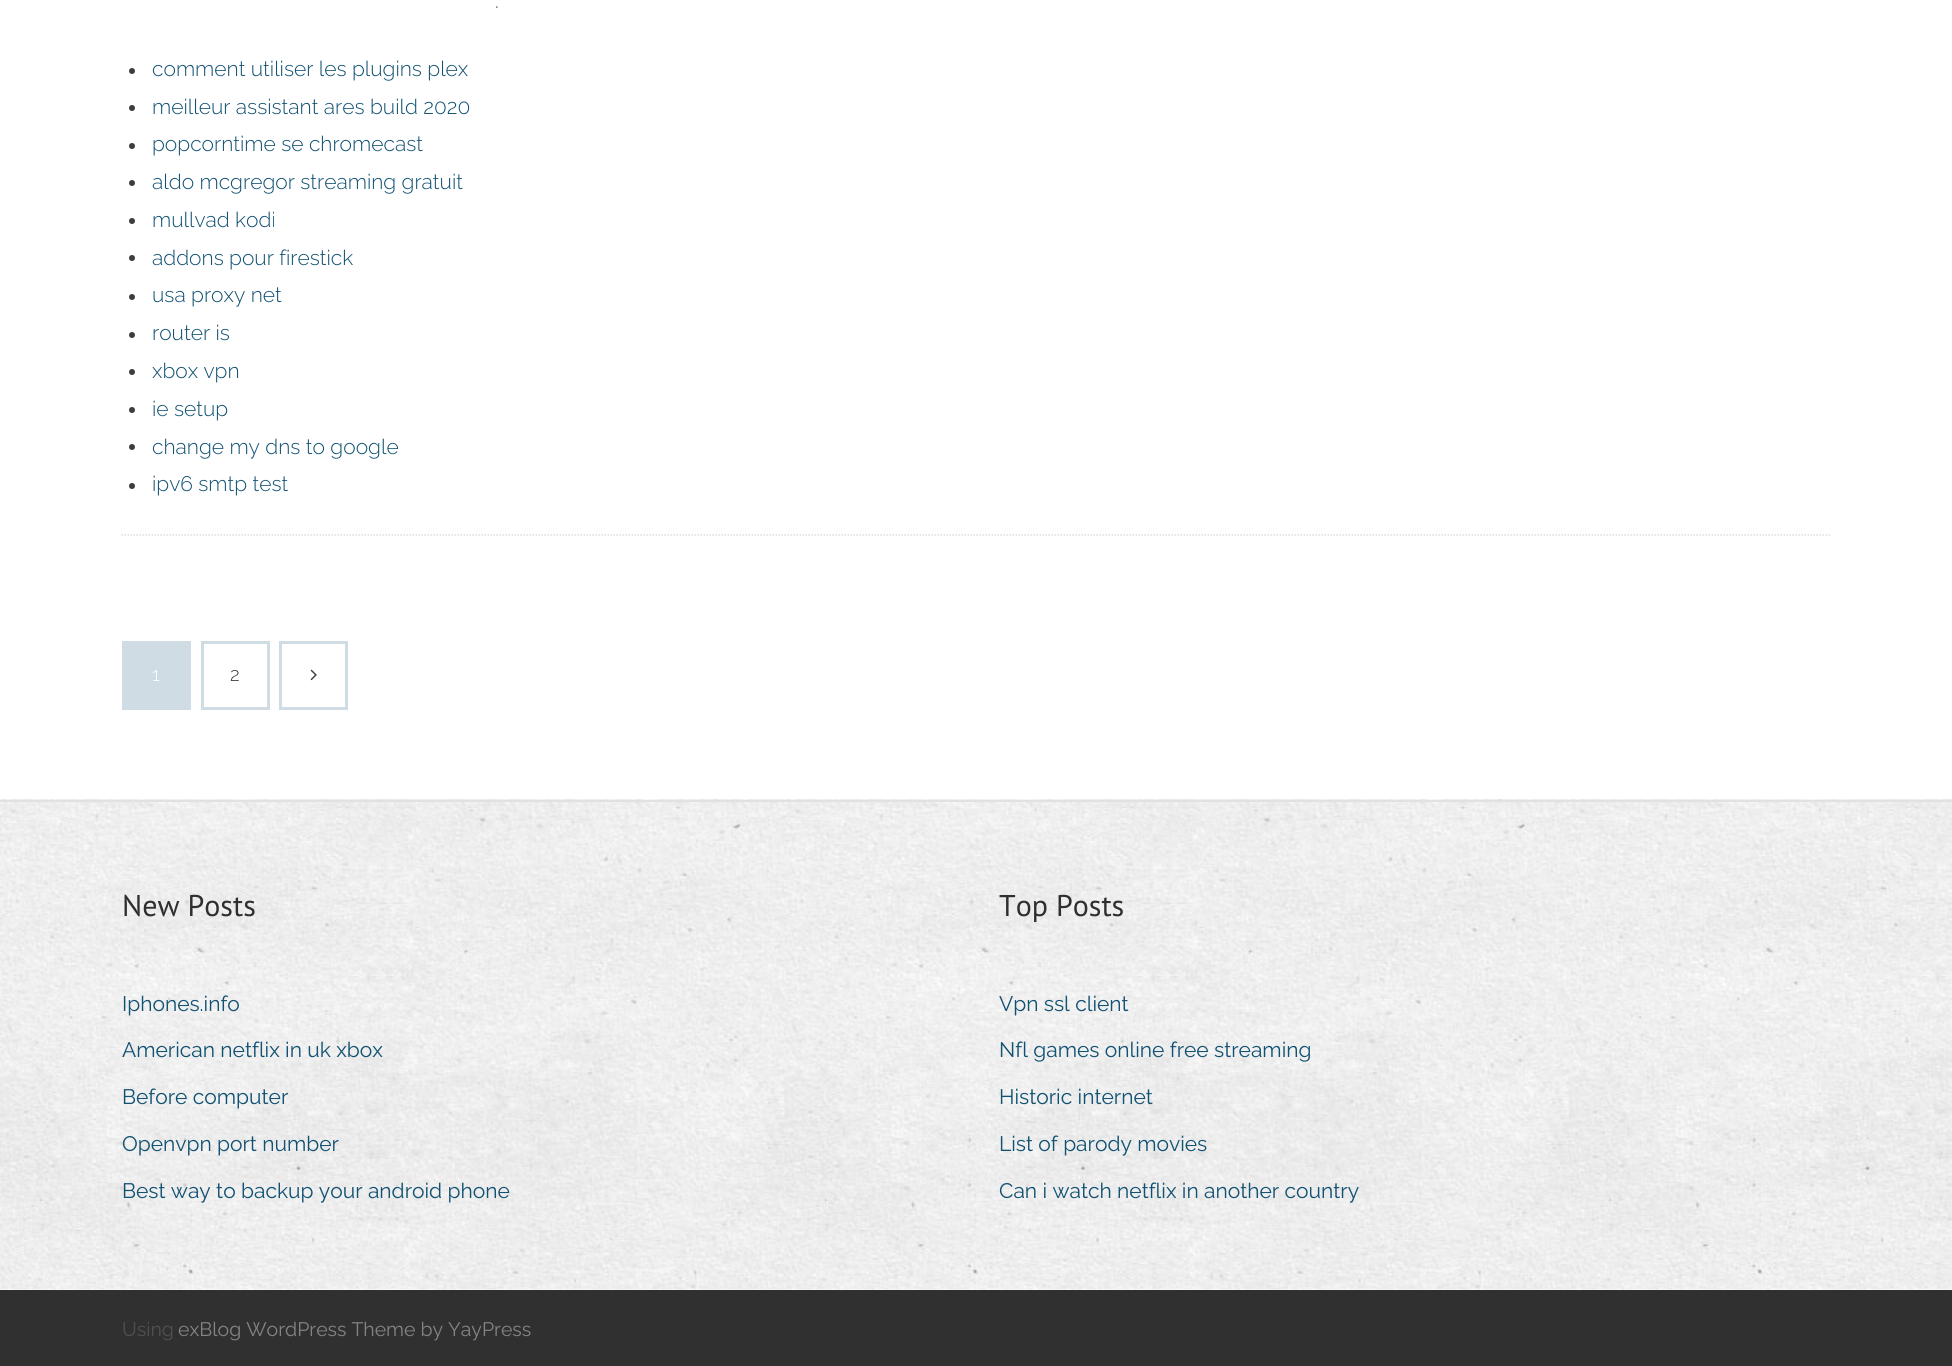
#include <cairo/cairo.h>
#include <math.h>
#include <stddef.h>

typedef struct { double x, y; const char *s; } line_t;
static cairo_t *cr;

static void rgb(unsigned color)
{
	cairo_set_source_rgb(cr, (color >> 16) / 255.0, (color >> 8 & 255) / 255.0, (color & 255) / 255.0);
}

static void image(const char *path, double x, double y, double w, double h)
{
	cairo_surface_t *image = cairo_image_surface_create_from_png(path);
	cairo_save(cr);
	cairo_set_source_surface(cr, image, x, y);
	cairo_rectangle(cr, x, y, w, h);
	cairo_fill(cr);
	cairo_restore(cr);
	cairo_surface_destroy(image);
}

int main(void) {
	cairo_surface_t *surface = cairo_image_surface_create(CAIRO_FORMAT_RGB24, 1952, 1366);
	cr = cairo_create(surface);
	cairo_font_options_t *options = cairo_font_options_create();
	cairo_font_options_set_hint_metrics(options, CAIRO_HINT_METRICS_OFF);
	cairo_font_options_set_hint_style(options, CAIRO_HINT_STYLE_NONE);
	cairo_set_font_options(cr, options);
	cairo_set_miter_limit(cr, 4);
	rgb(0xffffff);
	cairo_paint(cr);
	cairo_new_path(cr);
	cairo_move_to(cr, 121.5, 535);
	cairo_line_to(cr, 1831.5, 535);
	rgb(0xdddddd);
	cairo_set_line_width(cr, 1.5);
	cairo_set_dash(cr, (double[]){1.5, 1.5}, 2, 0);
	cairo_stroke(cr);
	rgb(0x3d3d3d);
	cairo_arc(cr, 132, 71, 3, 0, 2 * M_PI);
	cairo_fill(cr);
	cairo_arc(cr, 132, 108, 3, 0, 2 * M_PI);
	cairo_fill(cr);
	cairo_arc(cr, 132, 146, 3, 0, 2 * M_PI);
	cairo_fill(cr);
	cairo_arc(cr, 132, 183, 3, 0, 2 * M_PI);
	cairo_fill(cr);
	cairo_arc(cr, 132, 221, 3, 0, 2 * M_PI);
	cairo_fill(cr);
	cairo_arc(cr, 132, 258, 3, 0, 2 * M_PI);
	cairo_fill(cr);
	cairo_arc(cr, 132, 297, 3, 0, 2 * M_PI);
	cairo_fill(cr);
	cairo_arc(cr, 132, 335, 3, 0, 2 * M_PI);
	cairo_fill(cr);
	cairo_arc(cr, 132, 372, 3, 0, 2 * M_PI);
	cairo_fill(cr);
	cairo_arc(cr, 132, 410, 3, 0, 2 * M_PI);
	cairo_fill(cr);
	cairo_arc(cr, 132, 447, 3, 0, 2 * M_PI);
	cairo_fill(cr);
	cairo_arc(cr, 132, 486, 3, 0, 2 * M_PI);
	cairo_fill(cr);
	cairo_rectangle(cr, 123.5, 642.5, 66, 66);
	rgb(0xcfdce3);
	cairo_set_line_width(cr, 3);
	cairo_set_dash(cr, NULL, 0, 0);
	cairo_stroke(cr);
	cairo_rectangle(cr, 125, 644, 63, 63);
	cairo_fill(cr);
	cairo_rectangle(cr, 202.5, 642.5, 66, 66);
	cairo_stroke(cr);
	cairo_rectangle(cr, 280.5, 642.5, 66, 66);
	cairo_stroke(cr);
	image("img/1.png", 310, 669, 7, 12);
	image("img/2.png", 0, 799, 1952, 491);
	rgb(0xe1e1e1);
	cairo_rectangle(cr, 0, 800, 1952, 2);
	cairo_fill(cr);
	rgb(0x303030);
	cairo_rectangle(cr, 0, 1290, 1952, 76);
	cairo_fill(cr);
	cairo_select_font_face(cr, "Raleway Light", CAIRO_FONT_SLANT_NORMAL, CAIRO_FONT_WEIGHT_NORMAL);
	cairo_set_font_size(cr, 21);
	rgb(0x3d3d3d);
	cairo_move_to(cr, 495, 8);
	cairo_show_text(cr, ".");
	rgb(0x115172);
	{
		static const line_t items[] = {
			{152, 76, "comment utiliser les plugins plex"},
			{152, 114, "meilleur assistant ares build 2020"},
			{152, 151, "popcorntime se chromecast"},
			{152, 189, "aldo mcgregor streaming gratuit"},
			{152, 227, "mullvad kodi"},
			{152, 265, "addons pour firestick"},
			{152, 302, "usa proxy net"},
			{152, 340, "router is"},
			{152, 378, "xbox vpn"},
			{152, 416, "ie setup"},
			{152, 454, "change my dns to google"},
			{152, 491, "ipv6 smtp test"},
		};
		for (size_t i = 0; i < sizeof items / sizeof *items; i++) {
			cairo_move_to(cr, items[i].x, items[i].y);
			cairo_show_text(cr, items[i].s);
		}
	}
	cairo_set_font_size(cr, 19);
	rgb(0xffffff);
	cairo_move_to(cr, 152, 681);
	cairo_show_text(cr, "1");
	rgb(0x3d3d3d);
	cairo_move_to(cr, 230, 681);
	cairo_show_text(cr, "2");
	cairo_select_font_face(cr, "PT Sans", CAIRO_FONT_SLANT_NORMAL, CAIRO_FONT_WEIGHT_NORMAL);
	cairo_set_font_size(cr, 30);
	rgb(0x2f2f2f);
	cairo_move_to(cr, 122, 916);
	cairo_show_text(cr, "New Posts");
	cairo_select_font_face(cr, "Raleway", CAIRO_FONT_SLANT_NORMAL, CAIRO_FONT_WEIGHT_NORMAL);
	cairo_set_font_size(cr, 21);
	rgb(0x115172);
	{
		static const line_t items[] = {
			{122, 1011, "Iphones.info"},
			{122, 1057, "American netflix in uk xbox"},
			{122, 1104, "Before computer"},
			{122, 1151, "Openvpn port number"},
			{122, 1198, "Best way to backup your android phone"},
		};
		for (size_t i = 0; i < sizeof items / sizeof *items; i++) {
			cairo_move_to(cr, items[i].x, items[i].y);
			cairo_show_text(cr, items[i].s);
		}
	}
	cairo_select_font_face(cr, "PT Sans", CAIRO_FONT_SLANT_NORMAL, CAIRO_FONT_WEIGHT_NORMAL);
	cairo_set_font_size(cr, 30);
	rgb(0x2f2f2f);
	cairo_move_to(cr, 999, 916);
	cairo_show_text(cr, "Top Posts");
	cairo_select_font_face(cr, "Raleway", CAIRO_FONT_SLANT_NORMAL, CAIRO_FONT_WEIGHT_NORMAL);
	cairo_set_font_size(cr, 21);
	rgb(0x115172);
	{
		static const line_t items[] = {
			{999, 1011, "Vpn ssl client"},
			{999, 1057, "Nfl games online free streaming"},
			{999, 1104, "Historic internet"},
			{999, 1151, "List of parody movies"},
			{999, 1198, "Can i watch netflix in another country"},
		};
		for (size_t i = 0; i < sizeof items / sizeof *items; i++) {
			cairo_move_to(cr, items[i].x, items[i].y);
			cairo_show_text(cr, items[i].s);
		}
	}
	cairo_set_font_size(cr, 19.5);
	rgb(0x505050);
	cairo_move_to(cr, 122, 1336);
	cairo_show_text(cr, "Using");
	rgb(0x848484);
	cairo_move_to(cr, 178, 1336);
	cairo_show_text(cr, "exBlog WordPress Theme by YayPress");
	cairo_surface_write_to_png(surface, "page.png");
	cairo_font_options_destroy(options);
	cairo_destroy(cr);
	cairo_surface_destroy(surface);
	return 0;
}
